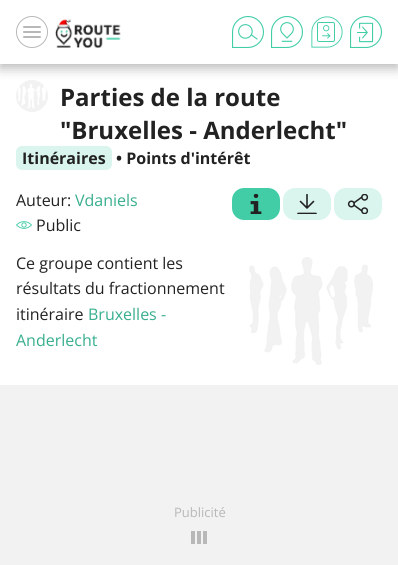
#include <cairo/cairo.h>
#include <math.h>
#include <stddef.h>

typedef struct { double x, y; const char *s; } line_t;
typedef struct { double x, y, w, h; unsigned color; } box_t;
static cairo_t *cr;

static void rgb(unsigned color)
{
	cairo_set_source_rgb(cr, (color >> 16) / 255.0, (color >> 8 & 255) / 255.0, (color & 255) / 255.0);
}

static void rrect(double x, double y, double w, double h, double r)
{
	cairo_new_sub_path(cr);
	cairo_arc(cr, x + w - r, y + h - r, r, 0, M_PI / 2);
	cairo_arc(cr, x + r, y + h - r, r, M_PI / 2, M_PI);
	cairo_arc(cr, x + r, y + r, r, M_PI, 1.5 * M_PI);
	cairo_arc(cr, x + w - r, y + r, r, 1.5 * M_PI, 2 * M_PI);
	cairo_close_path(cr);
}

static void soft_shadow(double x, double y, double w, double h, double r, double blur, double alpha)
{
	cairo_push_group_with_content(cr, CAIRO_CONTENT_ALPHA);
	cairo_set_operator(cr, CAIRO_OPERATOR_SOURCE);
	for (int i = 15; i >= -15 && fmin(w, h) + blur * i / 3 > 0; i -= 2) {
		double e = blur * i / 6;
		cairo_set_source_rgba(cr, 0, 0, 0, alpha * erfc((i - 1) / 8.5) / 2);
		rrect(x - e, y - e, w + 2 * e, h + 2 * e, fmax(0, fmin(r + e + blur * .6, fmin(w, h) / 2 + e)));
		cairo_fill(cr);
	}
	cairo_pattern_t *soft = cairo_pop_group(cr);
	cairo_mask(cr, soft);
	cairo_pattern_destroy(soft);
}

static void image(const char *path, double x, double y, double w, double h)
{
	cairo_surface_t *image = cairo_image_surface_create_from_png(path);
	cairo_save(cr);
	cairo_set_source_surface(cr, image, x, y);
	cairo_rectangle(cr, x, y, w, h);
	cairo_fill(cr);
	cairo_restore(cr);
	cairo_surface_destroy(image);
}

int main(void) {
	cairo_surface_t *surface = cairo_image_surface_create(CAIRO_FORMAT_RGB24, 398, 565);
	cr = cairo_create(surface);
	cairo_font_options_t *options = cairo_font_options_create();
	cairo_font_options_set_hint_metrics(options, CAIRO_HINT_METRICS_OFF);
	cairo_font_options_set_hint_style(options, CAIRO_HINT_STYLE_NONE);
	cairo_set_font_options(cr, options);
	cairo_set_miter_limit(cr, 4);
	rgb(0xffffff);
	cairo_paint(cr);
	image("img/6.png", 16, 80, 32, 32);
	cairo_save(cr);
	cairo_rectangle(cr, 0, 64, 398, 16);
	cairo_clip(cr);
	rgb(0xb8b8b8);
	soft_shadow(0, 4, 398, 64, 0, 6, 1);
	cairo_restore(cr);
	cairo_arc(cr, 32, 32, 15.5, 0, 2 * M_PI);
	rgb(0xb8b8b8);
	cairo_set_line_width(cr, 1);
	cairo_stroke(cr);
	rrect(23, 26, 18, 2, 1);
	cairo_fill(cr);
	rrect(23, 31, 18, 2, 1);
	cairo_fill(cr);
	rrect(23, 36, 18, 2, 1);
	cairo_fill(cr);
	image("img/1.png", 55, 19, 66, 29);
	image("img/2.png", 232, 16, 32, 32);
	image("img/3.png", 271, 16, 32, 32);
	image("img/4.png", 311, 16, 32, 32);
	image("img/5.png", 350, 16, 32, 32);
	rgb(0xd9f5ed);
	rrect(16, 146, 96, 24, 6);
	cairo_fill(cr);
	rgb(0x42cda7);
	rrect(232, 188, 48, 32, 12);
	cairo_fill(cr);
	image("img/7.png", 250, 194, 12, 20);
	rgb(0xd9f5ed);
	rrect(283, 188, 48, 32, 12);
	cairo_fill(cr);
	cairo_save(cr);
	cairo_rectangle(cr, 291, 194, 31, 20);
	cairo_clip(cr);
	cairo_new_path(cr);
	cairo_move_to(cr, 307, 194.5);
	cairo_line_to(cr, 307, 208);
	cairo_move_to(cr, 300.5, 201.5);
	cairo_line_to(cr, 307, 208);
	cairo_line_to(cr, 313.5, 201.5);
	cairo_move_to(cr, 298, 213.5);
	cairo_line_to(cr, 316, 213.5);
	rgb(0x222222);
	cairo_set_line_width(cr, 1.6);
	cairo_set_line_cap(cr, CAIRO_LINE_CAP_ROUND);
	cairo_set_line_join(cr, CAIRO_LINE_JOIN_ROUND);
	cairo_stroke(cr);
	cairo_restore(cr);
	rrect(334, 188, 48, 32, 12);
	cairo_fill(cr);
	image("img/8.png", 347, 194, 22, 20);
	image("img/9.png", 16, 221, 16, 8);
	image("img/10.png", 249, 257, 124, 108);
	{
		static const box_t items[] = {
			{0, 385, 398, 180, 0xf2f2f2},
			{197, 531, 4, 13, 0xb8b8b8},
			{191, 531, 4, 13, 0xb8b8b8},
			{203, 531, 4, 13, 0xb8b8b8},
		};
		for (size_t i = 0; i < sizeof items / sizeof *items; i++) {
			rgb(items[i].color);
			cairo_rectangle(cr, items[i].x, items[i].y, items[i].w, items[i].h);
			cairo_fill(cr);
		}
	}
	cairo_select_font_face(cr, "Open Sans", CAIRO_FONT_SLANT_NORMAL, CAIRO_FONT_WEIGHT_BOLD);
	cairo_set_font_size(cr, 24);
	rgb(0x222222);
	cairo_move_to(cr, 60, 106);
	cairo_show_text(cr, "Parties de la route");
	cairo_move_to(cr, 60, 139);
	cairo_show_text(cr, "\"Bruxelles - Anderlecht\"");
	cairo_set_font_size(cr, 16);
	cairo_move_to(cr, 22, 164);
	cairo_show_text(cr, "Itinéraires");
	cairo_move_to(cr, 116, 164);
	cairo_show_text(cr, "• Points d'intérêt");
	cairo_select_font_face(cr, "Open Sans", CAIRO_FONT_SLANT_NORMAL, CAIRO_FONT_WEIGHT_NORMAL);
	cairo_move_to(cr, 16, 206);
	cairo_show_text(cr, "Auteur:");
	rgb(0x38ae8e);
	cairo_move_to(cr, 75, 206);
	cairo_show_text(cr, "Vdaniels");
	rgb(0x222222);
	{
		static const line_t items[] = {
			{36, 231, "Public"},
			{16, 269, "Ce groupe contient les"},
			{16, 294, "résultats du fractionnement"},
			{16, 320, "itinéraire"},
		};
		for (size_t i = 0; i < sizeof items / sizeof *items; i++) {
			cairo_move_to(cr, items[i].x, items[i].y);
			cairo_show_text(cr, items[i].s);
		}
	}
	rgb(0x38ae8e);
	cairo_move_to(cr, 88, 320);
	cairo_show_text(cr, "Bruxelles -");
	cairo_move_to(cr, 16, 346);
	cairo_show_text(cr, "Anderlecht");
	cairo_set_font_size(cr, 13);
	rgb(0xb8b8b8);
	cairo_move_to(cr, 174, 517);
	cairo_show_text(cr, "Publicité");
	cairo_surface_write_to_png(surface, "page.png");
	cairo_font_options_destroy(options);
	cairo_destroy(cr);
	cairo_surface_destroy(surface);
	return 0;
}
